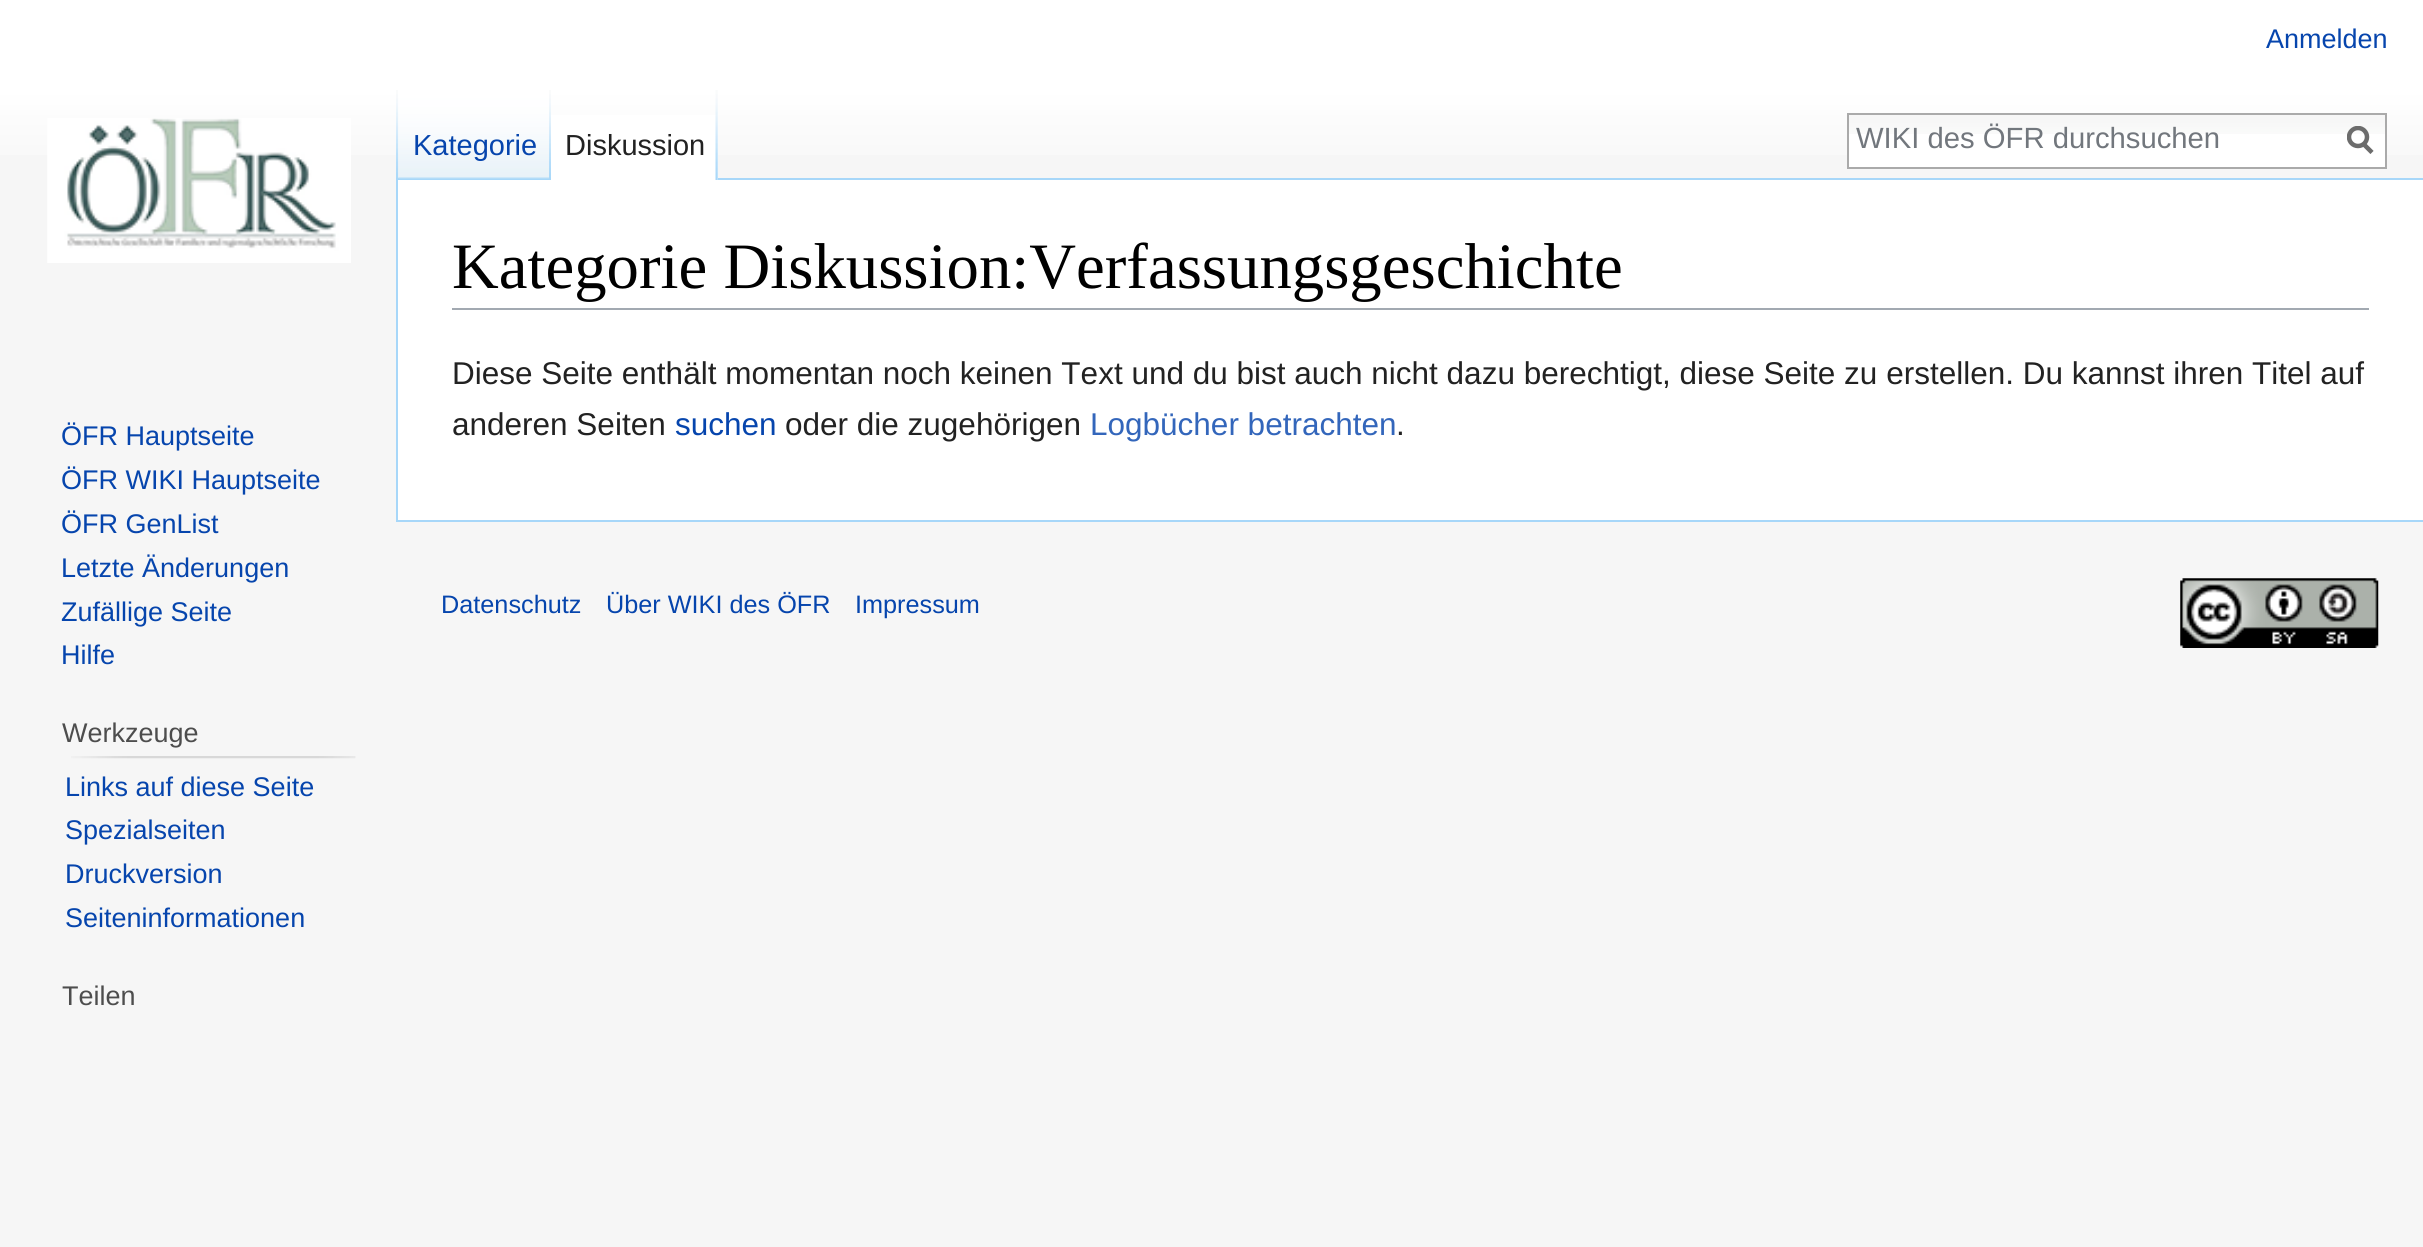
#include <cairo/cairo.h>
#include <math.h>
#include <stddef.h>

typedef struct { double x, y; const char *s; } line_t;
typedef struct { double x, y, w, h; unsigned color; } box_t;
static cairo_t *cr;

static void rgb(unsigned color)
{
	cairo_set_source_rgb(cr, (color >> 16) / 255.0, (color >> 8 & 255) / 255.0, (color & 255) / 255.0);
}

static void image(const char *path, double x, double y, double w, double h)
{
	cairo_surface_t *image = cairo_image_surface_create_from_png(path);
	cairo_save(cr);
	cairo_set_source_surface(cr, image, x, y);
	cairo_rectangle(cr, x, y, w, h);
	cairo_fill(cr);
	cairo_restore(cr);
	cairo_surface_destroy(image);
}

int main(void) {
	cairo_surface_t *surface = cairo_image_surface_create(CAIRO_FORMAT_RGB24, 2423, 1247);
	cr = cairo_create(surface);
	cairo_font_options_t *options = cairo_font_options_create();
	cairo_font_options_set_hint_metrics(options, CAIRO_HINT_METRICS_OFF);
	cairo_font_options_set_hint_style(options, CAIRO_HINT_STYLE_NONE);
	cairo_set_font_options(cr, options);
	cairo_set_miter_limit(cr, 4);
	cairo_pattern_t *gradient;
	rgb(0xf6f6f6);
	cairo_paint(cr);
	gradient = cairo_pattern_create_linear(1212, 0, 1212, 180);
	cairo_pattern_add_color_stop_rgba(gradient, 0.5, 1, 1, 1, 1);
	cairo_pattern_add_color_stop_rgba(gradient, 1, 0.965, 0.965, 0.965, 1);
	cairo_set_source(cr, gradient);
	cairo_pattern_destroy(gradient);
	cairo_rectangle(cr, 0, 0, 2423, 155);
	cairo_fill(cr);
	image("img/1.png", 396, 90, 3, 88);
	rgb(0xa7d7f9);
	cairo_rectangle(cr, 396, 178, 2027, 2);
	cairo_fill(cr);
	image("img/2.png", 398, 90, 153, 90);
	image("img/3.png", 549, 90, 2, 89);
	rgb(0xffffff);
	cairo_rectangle(cr, 551, 115, 167, 65);
	cairo_fill(cr);
	image("img/4.png", 715, 90, 3, 90);
	cairo_rectangle(cr, 1849, 134, 536, 33);
	cairo_fill(cr);
	image("img/5.png", 1849, 115, 536, 19);
	cairo_rectangle(cr, 1848, 114, 538, 54);
	rgb(0xaaaaaa);
	cairo_stroke(cr);
	cairo_new_path(cr);
	cairo_move_to(cr, 2372, 152.5);
	cairo_line_to(cr, 2363, 143.5);
	rgb(0x6c6c6c);
	cairo_set_line_width(cr, 4.5);
	cairo_stroke(cr);
	cairo_save(cr);
	cairo_rectangle(cr, 2347, 126, 27, 29);
	cairo_clip(cr);
	cairo_arc(cr, 2358, 137, 9, 0, 2 * M_PI);
	cairo_stroke(cr);
	cairo_restore(cr);
	image("img/6.png", 47, 118, 304, 145);
	image("img/7.png", 71, 756, 285, 3);
	{
		static const box_t items[] = {
			{398, 180, 2025, 340, 0xffffff},
			{396, 520, 2027, 2, 0xa7d7f9},
			{396, 178, 2, 344, 0xa7d7f9},
			{452, 308, 1917, 2, 0xa2a9b1},
		};
		for (size_t i = 0; i < sizeof items / sizeof *items; i++) {
			rgb(items[i].color);
			cairo_rectangle(cr, items[i].x, items[i].y, items[i].w, items[i].h);
			cairo_fill(cr);
		}
	}
	image("img/8.png", 2180, 578, 199, 70);
	cairo_select_font_face(cr, "Liberation Sans", CAIRO_FONT_SLANT_NORMAL, CAIRO_FONT_WEIGHT_NORMAL);
	cairo_set_font_size(cr, 27);
	rgb(0x0645ad);
	cairo_move_to(cr, 2266, 48);
	cairo_show_text(cr, "Anmelden");
	cairo_set_font_size(cr, 29);
	cairo_move_to(cr, 413, 155);
	cairo_show_text(cr, "Kategorie");
	rgb(0x222222);
	cairo_move_to(cr, 565, 155);
	cairo_show_text(cr, "Diskussion");
	cairo_set_font_size(cr, 29.25);
	rgb(0x72777d);
	cairo_move_to(cr, 1856, 148);
	cairo_show_text(cr, "WIKI des ÖFR durchsuchen");
	cairo_set_font_size(cr, 27);
	rgb(0x0645ad);
	{
		static const line_t items[] = {
			{61, 445, "ÖFR Hauptseite"},
			{61, 489, "ÖFR WIKI Hauptseite"},
			{61, 533, "ÖFR GenList"},
			{61, 577, "Letzte Änderungen"},
			{61, 621, "Zufällige Seite"},
			{61, 664, "Hilfe"},
		};
		for (size_t i = 0; i < sizeof items / sizeof *items; i++) {
			cairo_move_to(cr, items[i].x, items[i].y);
			cairo_show_text(cr, items[i].s);
		}
	}
	rgb(0x4d4d4d);
	cairo_move_to(cr, 62, 742);
	cairo_show_text(cr, "Werkzeuge");
	rgb(0x0645ad);
	{
		static const line_t items[] = {
			{65, 796, "Links auf diese Seite"},
			{65, 839, "Spezialseiten"},
			{65, 883, "Druckversion"},
			{65, 927, "Seiteninformationen"},
		};
		for (size_t i = 0; i < sizeof items / sizeof *items; i++) {
			cairo_move_to(cr, items[i].x, items[i].y);
			cairo_show_text(cr, items[i].s);
		}
	}
	rgb(0x4d4d4d);
	cairo_move_to(cr, 62, 1005);
	cairo_show_text(cr, "Teilen");
	cairo_select_font_face(cr, "Liberation Serif", CAIRO_FONT_SLANT_NORMAL, CAIRO_FONT_WEIGHT_NORMAL);
	cairo_set_font_size(cr, 64.75);
	rgb(0x000000);
	cairo_move_to(cr, 452, 288);
	cairo_show_text(cr, "Kategorie Diskussion:Verfassungsgeschichte");
	cairo_select_font_face(cr, "Liberation Sans", CAIRO_FONT_SLANT_NORMAL, CAIRO_FONT_WEIGHT_NORMAL);
	cairo_set_font_size(cr, 31.5);
	rgb(0x222222);
	cairo_move_to(cr, 452, 384);
	cairo_show_text(cr, "Diese Seite enthält momentan noch keinen Text und du bist auch nicht dazu berechtigt, diese Seite zu erstellen. Du kannst ihren Titel auf");
	cairo_move_to(cr, 452, 435);
	cairo_show_text(cr, "anderen Seiten");
	rgb(0x0645ad);
	cairo_move_to(cr, 675, 435);
	cairo_show_text(cr, "suchen");
	rgb(0x222222);
	cairo_move_to(cr, 785, 435);
	cairo_show_text(cr, "oder die zugehörigen");
	rgb(0x3366bb);
	cairo_move_to(cr, 1090, 435);
	cairo_show_text(cr, "Logbücher betrachten");
	rgb(0x222222);
	cairo_move_to(cr, 1396, 435);
	cairo_show_text(cr, ".");
	cairo_set_font_size(cr, 25.25);
	rgb(0x0645ad);
	{
		static const line_t items[] = {
			{441, 613, "Datenschutz"},
			{606, 613, "Über WIKI des ÖFR"},
			{855, 613, "Impressum"},
		};
		for (size_t i = 0; i < sizeof items / sizeof *items; i++) {
			cairo_move_to(cr, items[i].x, items[i].y);
			cairo_show_text(cr, items[i].s);
		}
	}
	cairo_surface_write_to_png(surface, "page.png");
	cairo_font_options_destroy(options);
	cairo_destroy(cr);
	cairo_surface_destroy(surface);
	return 0;
}
